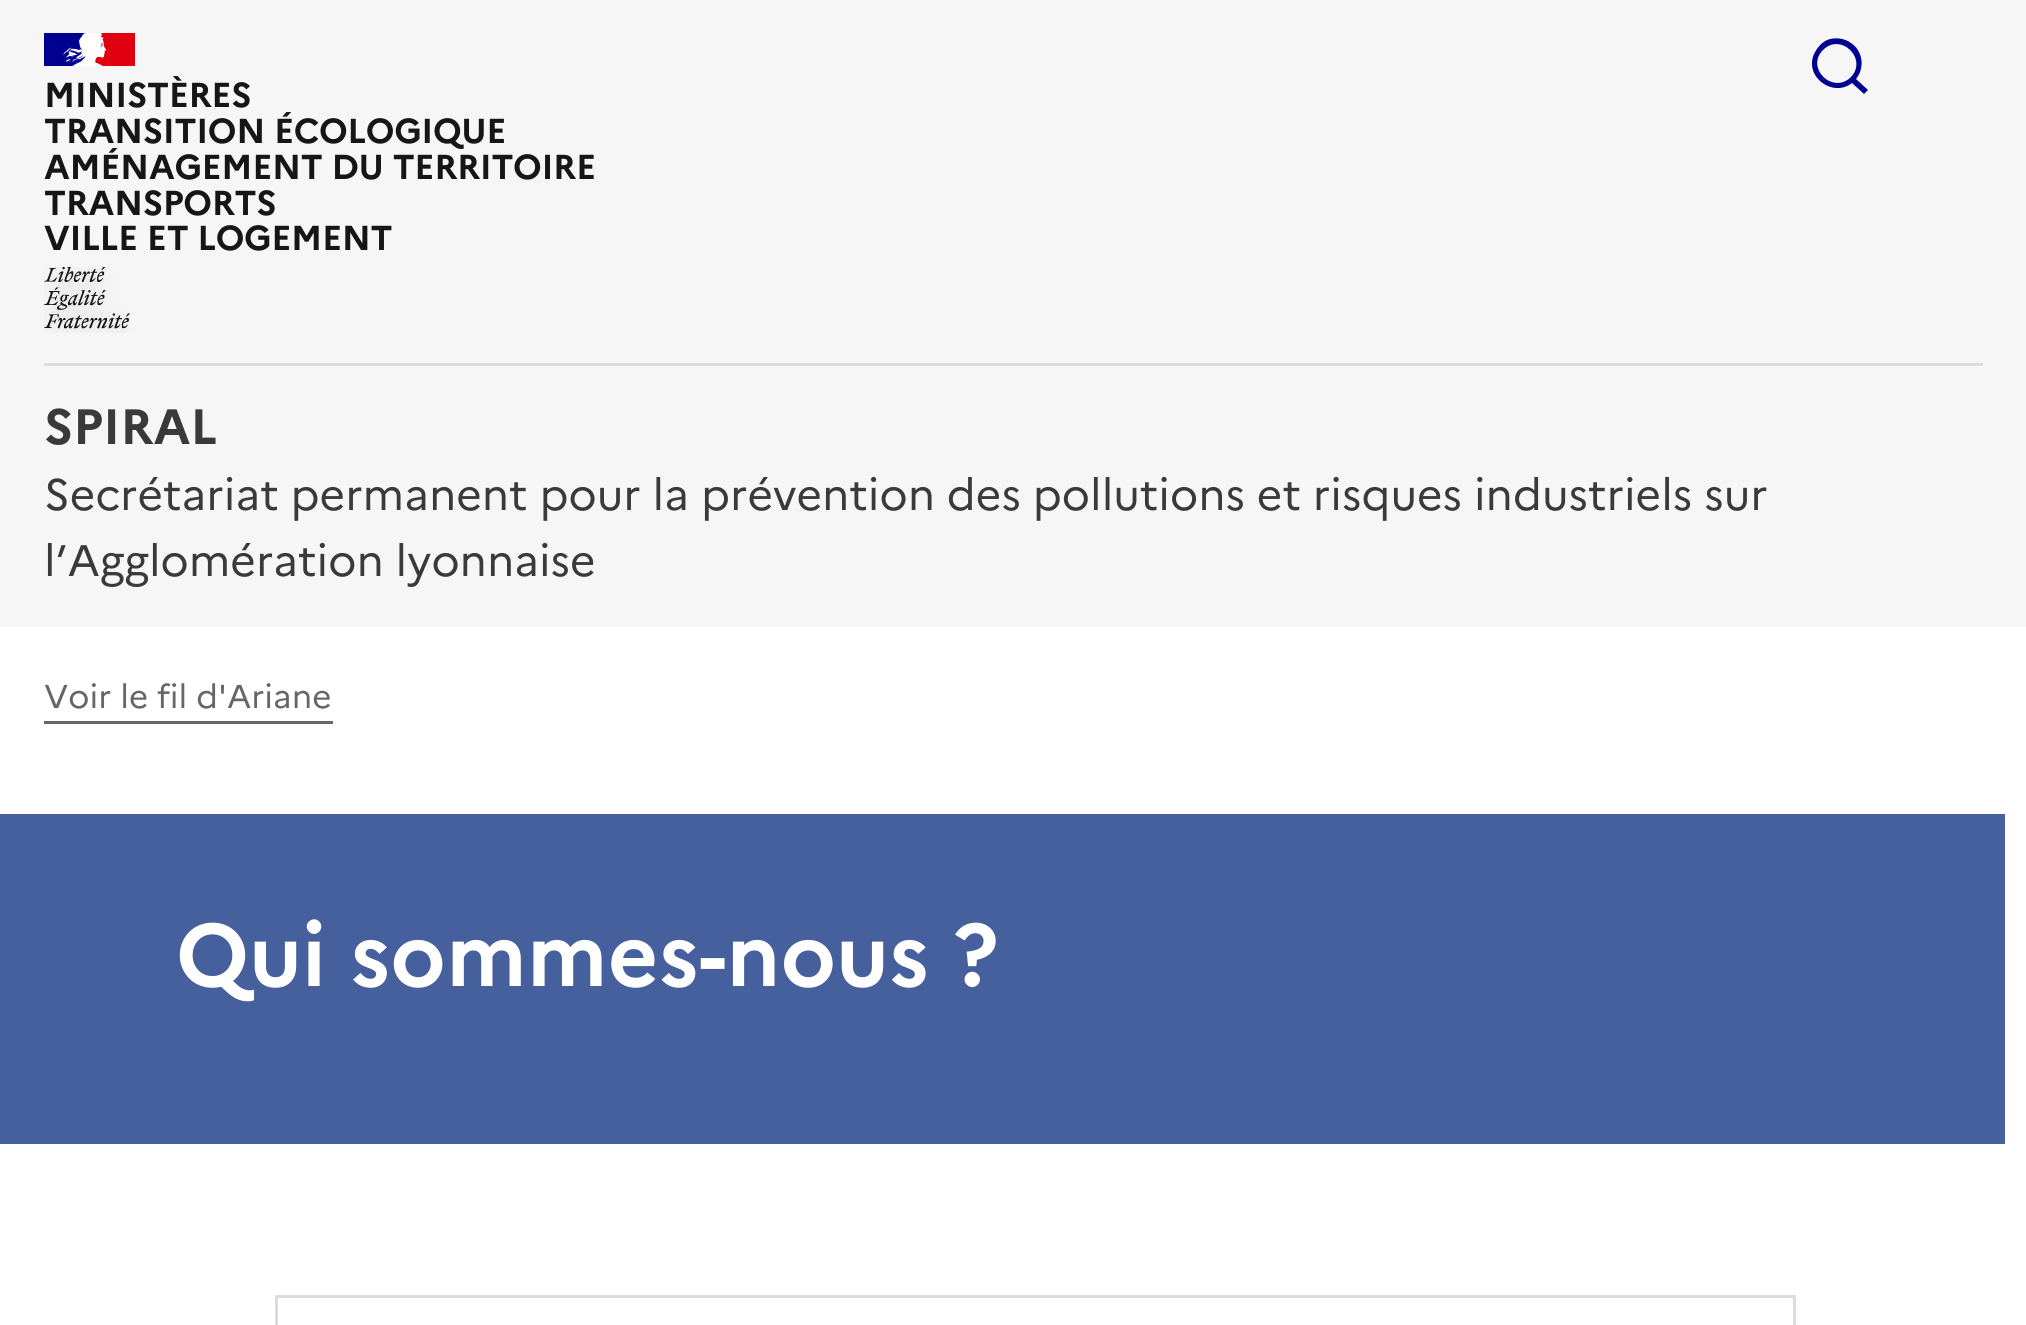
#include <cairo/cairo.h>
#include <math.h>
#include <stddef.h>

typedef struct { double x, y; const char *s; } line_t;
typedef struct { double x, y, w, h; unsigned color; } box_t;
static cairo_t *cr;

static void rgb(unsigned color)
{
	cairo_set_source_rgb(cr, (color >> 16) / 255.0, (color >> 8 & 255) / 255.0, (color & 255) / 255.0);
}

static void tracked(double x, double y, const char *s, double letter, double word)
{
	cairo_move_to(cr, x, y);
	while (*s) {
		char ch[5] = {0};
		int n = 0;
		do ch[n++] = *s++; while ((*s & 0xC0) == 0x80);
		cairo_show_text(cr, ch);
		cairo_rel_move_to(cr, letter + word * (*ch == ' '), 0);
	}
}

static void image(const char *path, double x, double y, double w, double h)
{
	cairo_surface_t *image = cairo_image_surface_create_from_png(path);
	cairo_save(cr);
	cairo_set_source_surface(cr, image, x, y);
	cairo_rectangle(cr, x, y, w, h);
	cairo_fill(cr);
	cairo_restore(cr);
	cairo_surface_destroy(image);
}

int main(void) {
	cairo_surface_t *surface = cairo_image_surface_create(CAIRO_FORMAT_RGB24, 2026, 1325);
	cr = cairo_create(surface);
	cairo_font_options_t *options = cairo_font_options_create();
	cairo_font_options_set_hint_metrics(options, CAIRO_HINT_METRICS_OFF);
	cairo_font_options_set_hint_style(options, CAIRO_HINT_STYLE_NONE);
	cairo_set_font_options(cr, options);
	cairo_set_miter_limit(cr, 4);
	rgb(0xffffff);
	cairo_paint(cr);
	rgb(0xf6f6f6);
	cairo_rectangle(cr, 0, 0, 2026, 627);
	cairo_fill(cr);
	rgb(0x000091);
	cairo_new_path(cr);
	cairo_move_to(cr, 1856, 79);
	cairo_line_to(cr, 1868, 90);
	cairo_line_to(cr, 1864, 94);
	cairo_line_to(cr, 1852, 83);
	cairo_curve_to(cr, 1833, 98, 1804, 77, 1814, 54);
	cairo_curve_to(cr, 1817, 48, 1821, 43, 1827, 40);
	cairo_curve_to(cr, 1835, 37, 1844, 38, 1851, 43);
	cairo_curve_to(cr, 1863, 51, 1865, 68, 1856, 79);
	cairo_close_path(cr);
	cairo_move_to(cr, 1851, 77);
	cairo_curve_to(cr, 1868, 59, 1841, 32, 1823, 50);
	cairo_curve_to(cr, 1805, 68, 1833, 95, 1851, 77);
	cairo_close_path(cr);
	cairo_fill(cr);
	cairo_rectangle(cr, 44, 33, 42, 33);
	cairo_fill(cr);
	rgb(0xe1000f);
	cairo_rectangle(cr, 95, 33, 40, 33);
	cairo_fill(cr);
	image("img/1.png", 62, 33, 44, 33);
	image("img/2.png", 44, 267, 86, 66);
	{
		static const box_t items[] = {
			{44, 363, 1939, 3, 0xdddddd},
			{44, 721, 289, 3, 0x666666},
			{0, 814, 2005, 330, 0x465f9d},
		};
		for (size_t i = 0; i < sizeof items / sizeof *items; i++) {
			rgb(items[i].color);
			cairo_rectangle(cr, items[i].x, items[i].y, items[i].w, items[i].h);
			cairo_fill(cr);
		}
	}
	cairo_rectangle(cr, 276.5, 1296.5, 1518, 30);
	rgb(0xdddddd);
	cairo_set_line_width(cr, 3);
	cairo_stroke(cr);
	cairo_select_font_face(cr, "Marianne", CAIRO_FONT_SLANT_NORMAL, CAIRO_FONT_WEIGHT_BOLD);
	cairo_set_font_size(cr, 34.6);
	rgb(0x161616);
	{
		static const line_t items[] = {
			{44, 107, "MINISTÈRES"},
			{44, 143, "TRANSITION ÉCOLOGIQUE"},
			{44, 179, "AMÉNAGEMENT DU TERRITOIRE"},
			{44, 215, "TRANSPORTS"},
			{44, 250, "VILLE ET LOGEMENT"},
		};
		for (size_t i = 0; i < sizeof items / sizeof *items; i++) {
			tracked(items[i].x, items[i].y, items[i].s, -0.35, 0);
		}
	}
	cairo_set_font_size(cr, 49.5);
	rgb(0x3a3a3a);
	cairo_move_to(cr, 44, 444);
	cairo_show_text(cr, "SPIRAL");
	cairo_select_font_face(cr, "Marianne", CAIRO_FONT_SLANT_NORMAL, CAIRO_FONT_WEIGHT_NORMAL);
	cairo_set_font_size(cr, 44);
	cairo_move_to(cr, 44, 510);
	cairo_show_text(cr, "Secrétariat permanent pour la prévention des pollutions et risques industriels sur");
	cairo_move_to(cr, 44, 576);
	cairo_show_text(cr, "l’Agglomération lyonnaise");
	cairo_set_font_size(cr, 33);
	rgb(0x666666);
	cairo_move_to(cr, 44, 708);
	cairo_show_text(cr, "Voir le fil d'Ariane");
	cairo_select_font_face(cr, "Marianne", CAIRO_FONT_SLANT_NORMAL, CAIRO_FONT_WEIGHT_BOLD);
	cairo_set_font_size(cr, 88);
	rgb(0xffffff);
	cairo_move_to(cr, 176, 986);
	cairo_show_text(cr, "Qui sommes-nous ?");
	cairo_surface_write_to_png(surface, "page.png");
	cairo_font_options_destroy(options);
	cairo_destroy(cr);
	cairo_surface_destroy(surface);
	return 0;
}
